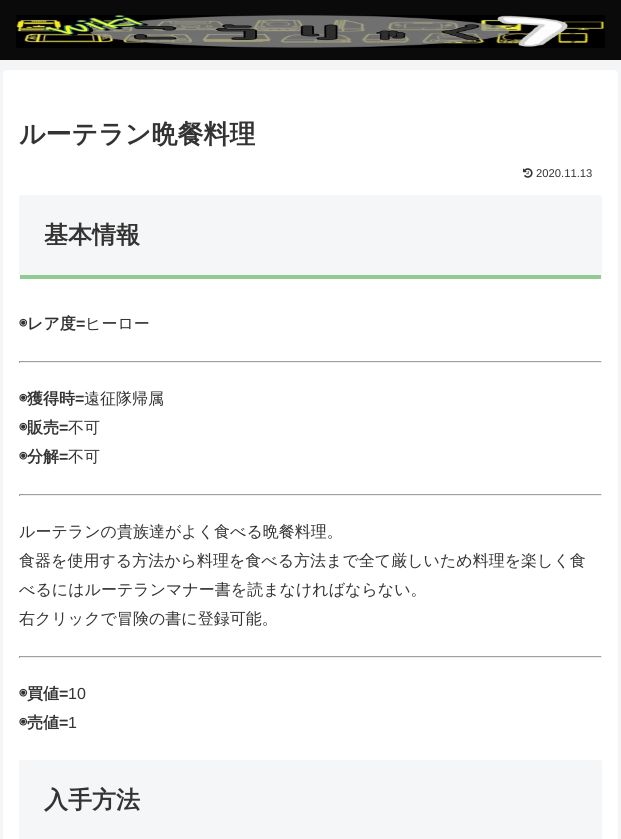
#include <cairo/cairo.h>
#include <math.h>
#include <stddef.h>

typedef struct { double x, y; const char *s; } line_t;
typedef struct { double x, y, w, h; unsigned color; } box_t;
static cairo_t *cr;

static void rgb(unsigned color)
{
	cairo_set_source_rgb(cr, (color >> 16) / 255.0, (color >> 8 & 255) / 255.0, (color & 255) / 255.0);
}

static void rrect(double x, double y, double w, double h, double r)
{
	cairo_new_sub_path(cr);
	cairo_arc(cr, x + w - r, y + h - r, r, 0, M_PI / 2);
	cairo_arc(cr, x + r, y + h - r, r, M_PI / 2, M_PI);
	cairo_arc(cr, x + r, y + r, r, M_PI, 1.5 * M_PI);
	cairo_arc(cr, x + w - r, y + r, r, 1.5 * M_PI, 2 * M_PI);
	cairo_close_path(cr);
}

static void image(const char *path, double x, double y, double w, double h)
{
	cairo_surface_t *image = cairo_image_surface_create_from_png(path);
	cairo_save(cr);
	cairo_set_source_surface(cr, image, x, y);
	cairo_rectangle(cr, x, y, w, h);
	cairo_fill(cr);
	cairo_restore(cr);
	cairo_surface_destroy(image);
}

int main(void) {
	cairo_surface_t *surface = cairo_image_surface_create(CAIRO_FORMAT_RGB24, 621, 839);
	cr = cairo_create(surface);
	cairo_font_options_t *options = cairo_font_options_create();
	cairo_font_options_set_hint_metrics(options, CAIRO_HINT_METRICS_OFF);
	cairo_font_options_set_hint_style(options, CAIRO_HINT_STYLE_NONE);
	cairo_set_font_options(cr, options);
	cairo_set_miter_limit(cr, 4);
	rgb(0xf4f5f7);
	cairo_paint(cr);
	rgb(0x0a0a0a);
	cairo_rectangle(cr, 0, 0, 621, 60);
	cairo_fill(cr);
	image("img/1.png", 16, 15, 589, 33);
	rgb(0xffffff);
	rrect(3, 70, 615, 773, 4);
	cairo_fill(cr);
	image("img/2.png", 523, 168, 10, 10);
	rgb(0xf5f6f7);
	rrect(19, 195, 583, 84, 2);
	cairo_fill(cr);
	{
		static const box_t items[] = {
			{20, 275, 581, 4, 0x90cb93},
			{19, 361, 583, 1, 0x9f9f9f},
			{601, 361, 1, 2, 0xeeeeee},
			{19, 362, 583, 1, 0xeeeeee},
			{19, 361, 1, 2, 0x9f9f9f},
			{19, 494, 583, 1, 0x9f9f9f},
			{601, 494, 1, 2, 0xeeeeee},
			{19, 495, 583, 1, 0xeeeeee},
			{19, 494, 1, 2, 0x9f9f9f},
			{19, 656, 583, 1, 0x9f9f9f},
			{601, 656, 1, 2, 0xeeeeee},
			{19, 657, 583, 1, 0xeeeeee},
			{19, 656, 1, 2, 0x9f9f9f},
		};
		for (size_t i = 0; i < sizeof items / sizeof *items; i++) {
			rgb(items[i].color);
			cairo_rectangle(cr, items[i].x, items[i].y, items[i].w, items[i].h);
			cairo_fill(cr);
		}
	}
	rgb(0xf5f6f7);
	rrect(19, 760, 583, 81, 2);
	cairo_fill(cr);
	cairo_select_font_face(cr, "WenQuanYi Zen Hei", CAIRO_FONT_SLANT_NORMAL, CAIRO_FONT_WEIGHT_BOLD);
	cairo_set_font_size(cr, 26);
	rgb(0x333333);
	cairo_move_to(cr, 19, 143);
	cairo_show_text(cr, "ルーテラン晩餐料理");
	cairo_select_font_face(cr, "Liberation Sans", CAIRO_FONT_SLANT_NORMAL, CAIRO_FONT_WEIGHT_NORMAL);
	cairo_set_font_size(cr, 11.25);
	cairo_move_to(cr, 536, 177);
	cairo_show_text(cr, "2020.11.13");
	cairo_select_font_face(cr, "WenQuanYi Zen Hei", CAIRO_FONT_SLANT_NORMAL, CAIRO_FONT_WEIGHT_BOLD);
	cairo_set_font_size(cr, 24);
	cairo_move_to(cr, 44, 243);
	cairo_show_text(cr, "基本情報");
	cairo_select_font_face(cr, "IPAPGothic", CAIRO_FONT_SLANT_NORMAL, CAIRO_FONT_WEIGHT_BOLD);
	cairo_set_font_size(cr, 16);
	cairo_move_to(cr, 19, 329);
	cairo_show_text(cr, "◉");
	cairo_select_font_face(cr, "WenQuanYi Zen Hei", CAIRO_FONT_SLANT_NORMAL, CAIRO_FONT_WEIGHT_BOLD);
	cairo_move_to(cr, 27, 329);
	cairo_show_text(cr, "レア度");
	cairo_select_font_face(cr, "Liberation Sans", CAIRO_FONT_SLANT_NORMAL, CAIRO_FONT_WEIGHT_BOLD);
	cairo_move_to(cr, 76, 329);
	cairo_show_text(cr, "=");
	cairo_select_font_face(cr, "WenQuanYi Zen Hei Medium", CAIRO_FONT_SLANT_NORMAL, CAIRO_FONT_WEIGHT_NORMAL);
	cairo_move_to(cr, 85, 329);
	cairo_show_text(cr, "ヒーロー");
	cairo_select_font_face(cr, "IPAPGothic", CAIRO_FONT_SLANT_NORMAL, CAIRO_FONT_WEIGHT_BOLD);
	cairo_move_to(cr, 19, 404);
	cairo_show_text(cr, "◉");
	cairo_select_font_face(cr, "WenQuanYi Zen Hei", CAIRO_FONT_SLANT_NORMAL, CAIRO_FONT_WEIGHT_BOLD);
	cairo_move_to(cr, 27, 404);
	cairo_show_text(cr, "獲得時");
	cairo_select_font_face(cr, "Liberation Sans", CAIRO_FONT_SLANT_NORMAL, CAIRO_FONT_WEIGHT_BOLD);
	cairo_move_to(cr, 75, 404);
	cairo_show_text(cr, "=");
	cairo_select_font_face(cr, "WenQuanYi Zen Hei Medium", CAIRO_FONT_SLANT_NORMAL, CAIRO_FONT_WEIGHT_NORMAL);
	cairo_move_to(cr, 84, 404);
	cairo_show_text(cr, "遠征隊帰属");
	cairo_select_font_face(cr, "IPAPGothic", CAIRO_FONT_SLANT_NORMAL, CAIRO_FONT_WEIGHT_BOLD);
	cairo_move_to(cr, 19, 433);
	cairo_show_text(cr, "◉");
	cairo_select_font_face(cr, "WenQuanYi Zen Hei", CAIRO_FONT_SLANT_NORMAL, CAIRO_FONT_WEIGHT_BOLD);
	cairo_move_to(cr, 27, 433);
	cairo_show_text(cr, "販売");
	cairo_select_font_face(cr, "Liberation Sans", CAIRO_FONT_SLANT_NORMAL, CAIRO_FONT_WEIGHT_BOLD);
	cairo_move_to(cr, 59, 433);
	cairo_show_text(cr, "=");
	cairo_select_font_face(cr, "WenQuanYi Zen Hei Medium", CAIRO_FONT_SLANT_NORMAL, CAIRO_FONT_WEIGHT_NORMAL);
	cairo_move_to(cr, 68, 433);
	cairo_show_text(cr, "不可");
	cairo_select_font_face(cr, "IPAPGothic", CAIRO_FONT_SLANT_NORMAL, CAIRO_FONT_WEIGHT_BOLD);
	cairo_move_to(cr, 19, 462);
	cairo_show_text(cr, "◉");
	cairo_select_font_face(cr, "WenQuanYi Zen Hei", CAIRO_FONT_SLANT_NORMAL, CAIRO_FONT_WEIGHT_BOLD);
	cairo_move_to(cr, 27, 462);
	cairo_show_text(cr, "分解");
	cairo_select_font_face(cr, "Liberation Sans", CAIRO_FONT_SLANT_NORMAL, CAIRO_FONT_WEIGHT_BOLD);
	cairo_move_to(cr, 59, 462);
	cairo_show_text(cr, "=");
	cairo_select_font_face(cr, "WenQuanYi Zen Hei Medium", CAIRO_FONT_SLANT_NORMAL, CAIRO_FONT_WEIGHT_NORMAL);
	{
		static const line_t items[] = {
			{68, 462, "不可"},
			{19, 537, "ルーテランの貴族達がよく食べる晩餐料理。"},
			{19, 566, "食器を使用する方法から料理を食べる方法まで全て厳しいため料理を楽しく食"},
			{19, 595, "べるにはルーテランマナー書を読まなければならない。"},
			{19, 624, "右クリックで冒険の書に登録可能。"},
		};
		for (size_t i = 0; i < sizeof items / sizeof *items; i++) {
			cairo_move_to(cr, items[i].x, items[i].y);
			cairo_show_text(cr, items[i].s);
		}
	}
	cairo_select_font_face(cr, "IPAPGothic", CAIRO_FONT_SLANT_NORMAL, CAIRO_FONT_WEIGHT_BOLD);
	cairo_move_to(cr, 19, 699);
	cairo_show_text(cr, "◉");
	cairo_select_font_face(cr, "WenQuanYi Zen Hei", CAIRO_FONT_SLANT_NORMAL, CAIRO_FONT_WEIGHT_BOLD);
	cairo_move_to(cr, 27, 699);
	cairo_show_text(cr, "買値");
	cairo_select_font_face(cr, "Liberation Sans", CAIRO_FONT_SLANT_NORMAL, CAIRO_FONT_WEIGHT_BOLD);
	cairo_move_to(cr, 59, 699);
	cairo_show_text(cr, "=");
	cairo_select_font_face(cr, "Liberation Sans", CAIRO_FONT_SLANT_NORMAL, CAIRO_FONT_WEIGHT_NORMAL);
	cairo_move_to(cr, 68, 699);
	cairo_show_text(cr, "10");
	cairo_select_font_face(cr, "IPAPGothic", CAIRO_FONT_SLANT_NORMAL, CAIRO_FONT_WEIGHT_BOLD);
	cairo_move_to(cr, 19, 728);
	cairo_show_text(cr, "◉");
	cairo_select_font_face(cr, "WenQuanYi Zen Hei", CAIRO_FONT_SLANT_NORMAL, CAIRO_FONT_WEIGHT_BOLD);
	cairo_move_to(cr, 27, 728);
	cairo_show_text(cr, "売値");
	cairo_select_font_face(cr, "Liberation Sans", CAIRO_FONT_SLANT_NORMAL, CAIRO_FONT_WEIGHT_BOLD);
	cairo_move_to(cr, 59, 728);
	cairo_show_text(cr, "=");
	cairo_select_font_face(cr, "Liberation Sans", CAIRO_FONT_SLANT_NORMAL, CAIRO_FONT_WEIGHT_NORMAL);
	cairo_move_to(cr, 68, 728);
	cairo_show_text(cr, "1");
	cairo_select_font_face(cr, "WenQuanYi Zen Hei", CAIRO_FONT_SLANT_NORMAL, CAIRO_FONT_WEIGHT_BOLD);
	cairo_set_font_size(cr, 24);
	cairo_move_to(cr, 44, 808);
	cairo_show_text(cr, "入手方法");
	cairo_surface_write_to_png(surface, "page.png");
	cairo_font_options_destroy(options);
	cairo_destroy(cr);
	cairo_surface_destroy(surface);
	return 0;
}
